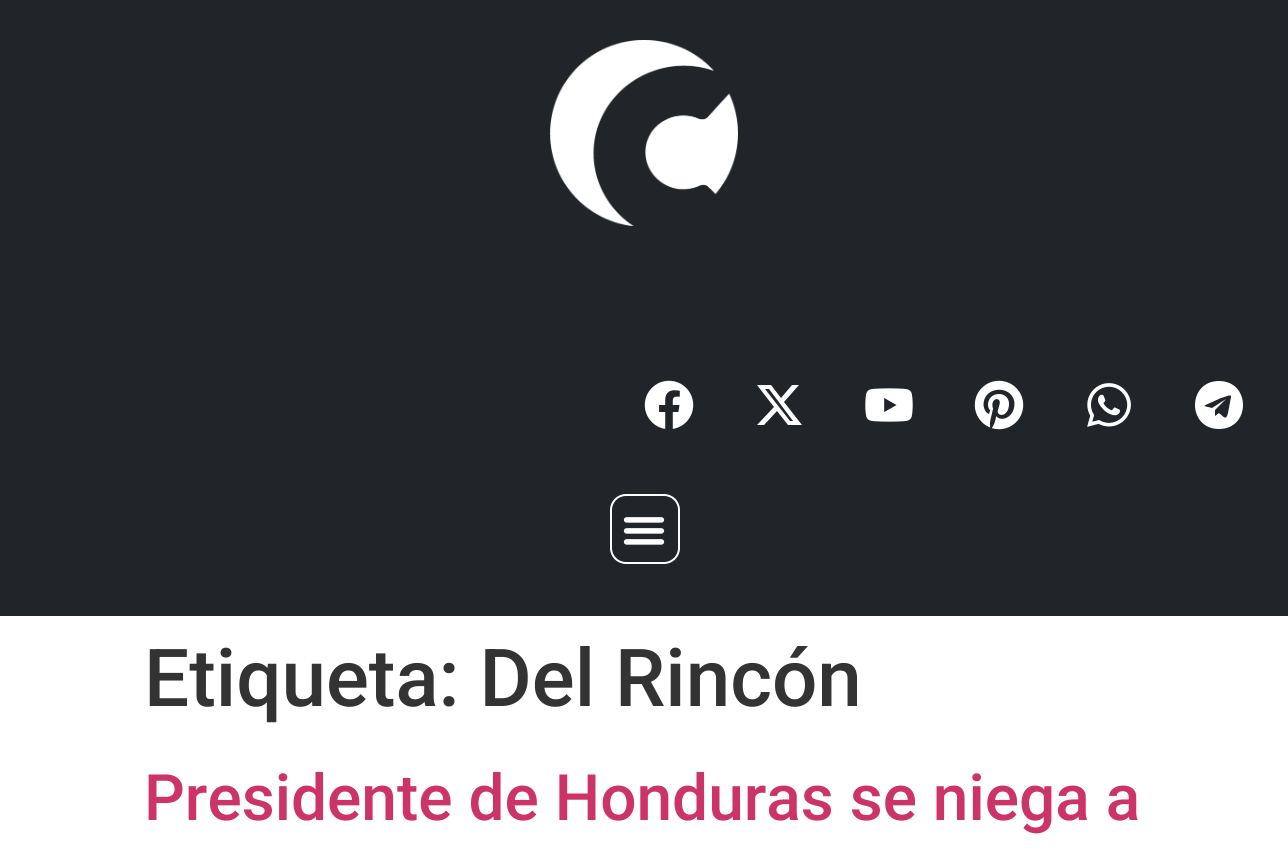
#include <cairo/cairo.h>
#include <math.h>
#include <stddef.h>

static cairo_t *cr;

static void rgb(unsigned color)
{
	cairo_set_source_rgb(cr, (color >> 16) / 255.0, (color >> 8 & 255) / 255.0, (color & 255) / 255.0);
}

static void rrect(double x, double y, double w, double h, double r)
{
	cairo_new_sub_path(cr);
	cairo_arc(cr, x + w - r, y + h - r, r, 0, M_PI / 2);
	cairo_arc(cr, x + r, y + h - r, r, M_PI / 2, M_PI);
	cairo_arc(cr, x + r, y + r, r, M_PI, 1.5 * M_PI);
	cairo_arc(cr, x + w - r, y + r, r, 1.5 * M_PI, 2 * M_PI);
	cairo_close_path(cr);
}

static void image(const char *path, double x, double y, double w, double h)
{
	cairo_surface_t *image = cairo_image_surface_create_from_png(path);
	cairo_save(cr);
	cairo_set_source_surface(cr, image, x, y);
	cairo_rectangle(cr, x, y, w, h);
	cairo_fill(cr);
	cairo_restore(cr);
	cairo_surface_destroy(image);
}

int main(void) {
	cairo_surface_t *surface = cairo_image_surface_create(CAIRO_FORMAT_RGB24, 1288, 853);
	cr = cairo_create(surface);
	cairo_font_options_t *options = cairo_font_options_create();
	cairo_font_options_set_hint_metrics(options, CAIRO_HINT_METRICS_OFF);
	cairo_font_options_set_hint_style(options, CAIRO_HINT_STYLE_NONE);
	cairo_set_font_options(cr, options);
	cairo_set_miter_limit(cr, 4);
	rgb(0xffffff);
	cairo_paint(cr);
	rgb(0x212529);
	cairo_rectangle(cr, 0, 0, 1288, 616);
	cairo_fill(cr);
	image("img/1.png", 550, 40, 188, 186);
	image("img/2.png", 644, 380, 50, 49);
	rgb(0xffffff);
	cairo_new_path(cr);
	cairo_move_to(cr, 792, 385);
	cairo_line_to(cr, 799, 385);
	cairo_line_to(cr, 784, 402);
	cairo_line_to(cr, 802, 425);
	cairo_line_to(cr, 788, 425);
	cairo_line_to(cr, 777, 411);
	cairo_line_to(cr, 764, 425);
	cairo_line_to(cr, 757, 425);
	cairo_line_to(cr, 774, 407);
	cairo_line_to(cr, 757, 385);
	cairo_line_to(cr, 771, 385);
	cairo_line_to(cr, 781, 398);
	cairo_close_path(cr);
	cairo_move_to(cr, 790, 421);
	cairo_line_to(cr, 793, 421);
	cairo_line_to(cr, 769, 389);
	cairo_line_to(cr, 765, 389);
	cairo_close_path(cr);
	cairo_fill(cr);
	image("img/3.png", 865, 388, 48, 34);
	image("img/4.png", 974, 380, 50, 50);
	image("img/5.png", 1087, 383, 44, 44);
	cairo_new_path(cr);
	cairo_move_to(cr, 1219, 381);
	cairo_curve_to(cr, 1187, 381, 1187, 429, 1219, 429);
	cairo_curve_to(cr, 1251, 429, 1251, 381, 1219, 381);
	cairo_close_path(cr);
	cairo_move_to(cr, 1231, 397);
	cairo_line_to(cr, 1228, 413);
	cairo_curve_to(cr, 1226, 421, 1224, 417, 1219, 413);
	cairo_line_to(cr, 1215, 416);
	cairo_line_to(cr, 1215, 410);
	cairo_line_to(cr, 1226, 399);
	cairo_line_to(cr, 1212, 408);
	cairo_curve_to(cr, 1206, 406, 1200, 407, 1210, 403);
	cairo_line_to(cr, 1221, 398);
	cairo_curve_to(cr, 1223, 398, 1232, 393, 1231, 397);
	cairo_close_path(cr);
	cairo_fill(cr);
	rrect(611, 495, 68, 68, 15);
	cairo_stroke(cr);
	image("img/6.png", 623, 517, 42, 28);
	cairo_select_font_face(cr, "Roboto Medium", CAIRO_FONT_SLANT_NORMAL, CAIRO_FONT_WEIGHT_NORMAL);
	cairo_set_font_size(cr, 80);
	rgb(0x333333);
	cairo_move_to(cr, 144, 706);
	cairo_show_text(cr, "Etiqueta: Del Rincón");
	cairo_set_font_size(cr, 64);
	rgb(0xcc3366);
	cairo_move_to(cr, 144, 820);
	cairo_show_text(cr, "Presidente de Honduras se niega a");
	cairo_surface_write_to_png(surface, "page.png");
	cairo_font_options_destroy(options);
	cairo_destroy(cr);
	cairo_surface_destroy(surface);
	return 0;
}
